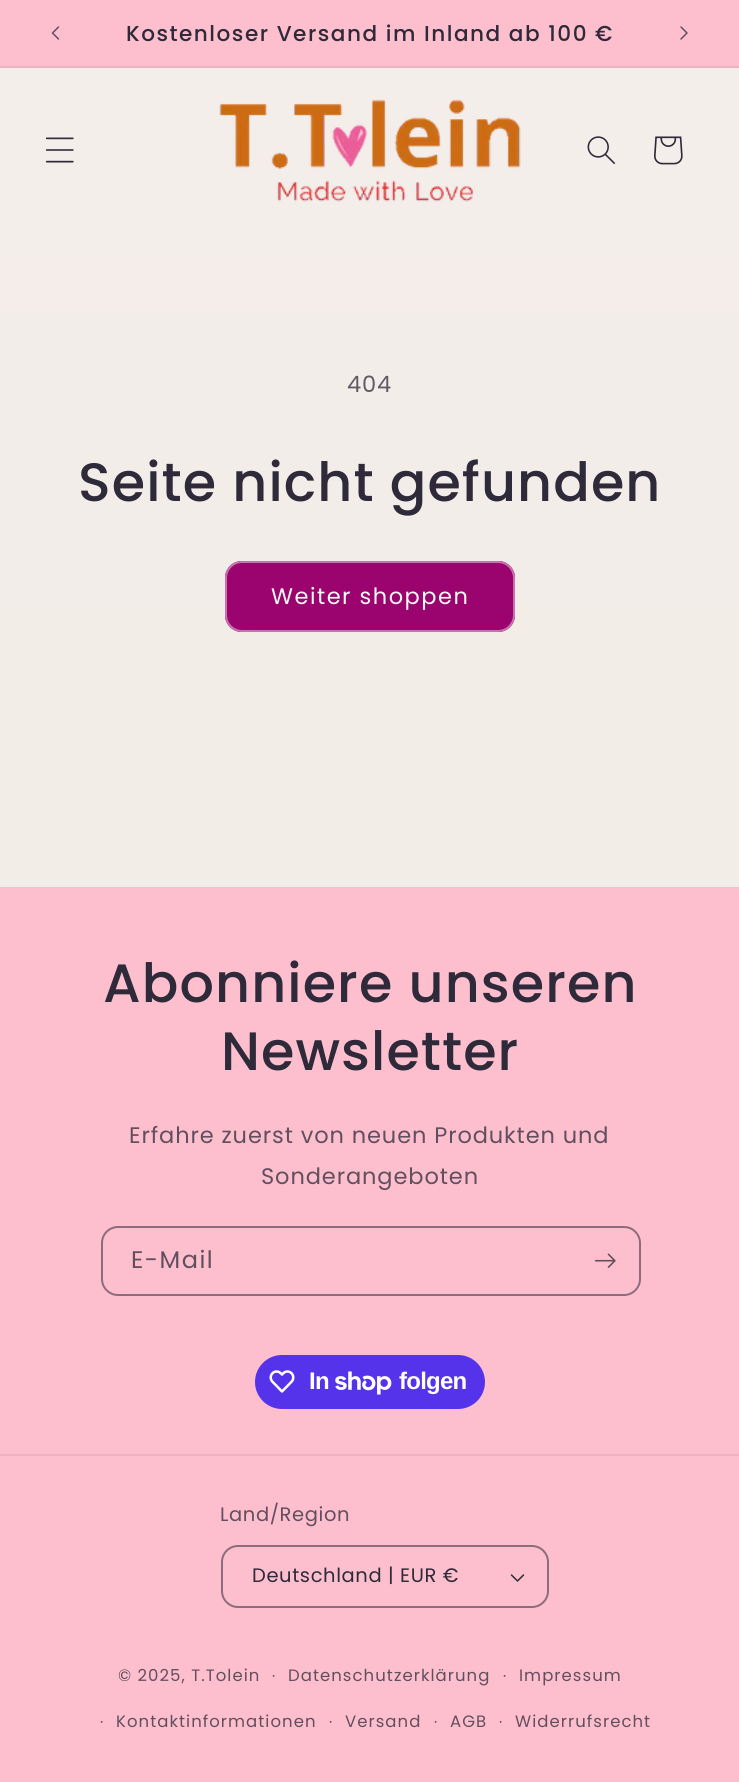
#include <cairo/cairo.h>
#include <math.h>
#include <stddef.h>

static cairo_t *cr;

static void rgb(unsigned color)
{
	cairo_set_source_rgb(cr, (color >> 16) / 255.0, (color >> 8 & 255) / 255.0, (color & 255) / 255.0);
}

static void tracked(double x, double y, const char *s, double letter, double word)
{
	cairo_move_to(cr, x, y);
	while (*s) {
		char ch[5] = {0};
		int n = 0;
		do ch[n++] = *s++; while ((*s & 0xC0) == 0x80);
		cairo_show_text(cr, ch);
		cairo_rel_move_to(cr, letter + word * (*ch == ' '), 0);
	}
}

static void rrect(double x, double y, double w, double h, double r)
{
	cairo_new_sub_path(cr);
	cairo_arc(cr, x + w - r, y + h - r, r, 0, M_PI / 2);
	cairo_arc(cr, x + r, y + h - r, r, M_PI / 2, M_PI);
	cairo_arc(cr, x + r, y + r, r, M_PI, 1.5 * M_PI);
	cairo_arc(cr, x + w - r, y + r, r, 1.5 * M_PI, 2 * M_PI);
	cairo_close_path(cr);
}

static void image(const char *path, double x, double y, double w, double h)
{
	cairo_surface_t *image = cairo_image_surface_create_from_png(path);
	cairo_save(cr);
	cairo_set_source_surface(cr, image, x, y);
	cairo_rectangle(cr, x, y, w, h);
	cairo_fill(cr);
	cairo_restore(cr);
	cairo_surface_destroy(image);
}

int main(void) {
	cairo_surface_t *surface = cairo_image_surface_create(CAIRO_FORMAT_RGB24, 739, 1782);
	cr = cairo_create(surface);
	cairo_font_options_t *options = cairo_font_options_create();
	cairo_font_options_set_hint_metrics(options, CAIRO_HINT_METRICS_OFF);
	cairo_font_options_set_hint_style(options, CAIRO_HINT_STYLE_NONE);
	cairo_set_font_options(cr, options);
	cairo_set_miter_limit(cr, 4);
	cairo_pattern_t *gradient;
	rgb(0xffffff);
	cairo_paint(cr);
	gradient = cairo_pattern_create_linear(370, 0, 370, 1782);
	cairo_pattern_add_color_stop_rgba(gradient, 0, 0.957, 0.933, 0.925, 1);
	cairo_pattern_add_color_stop_rgba(gradient, 1, 0.945, 0.922, 0.886, 1);
	cairo_set_source(cr, gradient);
	cairo_pattern_destroy(gradient);
	cairo_rectangle(cr, 0, 68, 739, 819);
	cairo_fill(cr);
	rgb(0xfdbfce);
	cairo_rectangle(cr, 0, 0, 739, 66);
	cairo_fill(cr);
	rgb(0xecb3c2);
	cairo_rectangle(cr, 0, 66, 739, 2);
	cairo_fill(cr);
	image("img/1.png", 51, 26, 9, 14);
	image("img/2.png", 680, 26, 8, 14);
	image("img/3.png", 45, 137, 29, 26);
	image("img/4.png", 219, 99, 302, 103);
	image("img/5.png", 587, 136, 28, 28);
	image("img/6.png", 654, 136, 29, 29);
	rgb(0x9b046f);
	rrect(225, 561, 290, 71, 17);
	cairo_fill(cr);
	rrect(226, 562, 288, 69, 16);
	cairo_stroke(cr);
	rrect(226, 562, 288, 69, 16);
	cairo_set_source_rgba(cr, 0.992, 0.984, 0.969, 0.45);
	cairo_stroke(cr);
	rgb(0xfdbfce);
	cairo_rectangle(cr, 0, 887, 739, 895);
	cairo_fill(cr);
	rrect(102, 1227, 538, 68, 16);
	rgb(0x8b6d7c);
	cairo_stroke(cr);
	image("img/7.png", 594, 1253, 22, 15);
	rgb(0x5433eb);
	rrect(255, 1355, 230, 54, 27);
	cairo_fill(cr);
	image("img/8.png", 269, 1370, 26, 23);
	image("img/9.png", 335, 1371, 57, 24);
	rgb(0xecb3c2);
	cairo_rectangle(cr, 0, 1454, 739, 2);
	cairo_fill(cr);
	image("img/10.png", 510, 1574, 15, 8);
	rrect(222, 1546, 326, 61, 16);
	rgb(0x8b6d7c);
	cairo_stroke(cr);
	cairo_select_font_face(cr, "Poppins Medium", CAIRO_FONT_SLANT_NORMAL, CAIRO_FONT_WEIGHT_NORMAL);
	cairo_set_font_size(cr, 21.6);
	rgb(0x2e2a39);
	tracked(126, 41, "Kostenloser Versand im Inland ab 100 €", 1.5, 0);
	cairo_select_font_face(cr, "Poppins", CAIRO_FONT_SLANT_NORMAL, CAIRO_FONT_WEIGHT_NORMAL);
	cairo_set_font_size(cr, 22.5);
	rgb(0x5f5b65);
	tracked(347, 392, "404", 0.9, 0);
	cairo_select_font_face(cr, "Poppins Medium", CAIRO_FONT_SLANT_NORMAL, CAIRO_FONT_WEIGHT_NORMAL);
	cairo_set_font_size(cr, 54);
	rgb(0x2e2a39);
	tracked(78, 501, "Seite nicht gefunden", 1.1, 0);
	cairo_select_font_face(cr, "Poppins", CAIRO_FONT_SLANT_NORMAL, CAIRO_FONT_WEIGHT_NORMAL);
	cairo_set_font_size(cr, 22.5);
	rgb(0xfdfbf7);
	tracked(271, 604, "Weiter shoppen", 1.5, 0);
	cairo_select_font_face(cr, "Poppins Medium", CAIRO_FONT_SLANT_NORMAL, CAIRO_FONT_WEIGHT_NORMAL);
	cairo_set_font_size(cr, 54);
	rgb(0x2e2a39);
	tracked(103, 1002, "Abonniere unseren", 1.1, 0);
	tracked(221, 1070, "Newsletter", 1.1, 0);
	cairo_select_font_face(cr, "Poppins", CAIRO_FONT_SLANT_NORMAL, CAIRO_FONT_WEIGHT_NORMAL);
	cairo_set_font_size(cr, 22.5);
	rgb(0x624f5e);
	tracked(129, 1143, "Erfahre zuerst von neuen Produkten und", 0.9, 0);
	tracked(261, 1184, "Sonderangeboten", 0.9, 0);
	cairo_set_font_size(cr, 24);
	tracked(131, 1268, "E-Mail", 1.5, 0);
	cairo_select_font_face(cr, "Liberation Sans", CAIRO_FONT_SLANT_NORMAL, CAIRO_FONT_WEIGHT_BOLD);
	rgb(0xffffff);
	tracked(309, 1389, "In", -0.75, 0);
	tracked(399, 1389, "folgen", -0.75, 0);
	cairo_select_font_face(cr, "Poppins", CAIRO_FONT_SLANT_NORMAL, CAIRO_FONT_WEIGHT_NORMAL);
	cairo_set_font_size(cr, 19.5);
	rgb(0x624f5e);
	tracked(220, 1521, "Land/Region", 0.6, 0);
	rgb(0x2e2a39);
	tracked(252, 1582, "Deutschland | EUR €", 0.6, 0);
	cairo_set_font_size(cr, 15);
	rgb(0x624f5e);
	tracked(272, 1681, "·", 1.05, 0);
	cairo_set_font_size(cr, 16.5);
	tracked(288, 1681, "Datenschutzerklärung", 1.05, 0);
	cairo_set_font_size(cr, 15);
	tracked(503, 1681, "·", 1.05, 0);
	cairo_set_font_size(cr, 16.5);
	tracked(519, 1681, "Impressum", 1.05, 0);
	cairo_set_font_size(cr, 15);
	tracked(100, 1727, "·", 1.05, 0);
	cairo_set_font_size(cr, 16.5);
	tracked(116, 1727, "Kontaktinformationen", 1.05, 0);
	cairo_set_font_size(cr, 15);
	tracked(329, 1727, "·", 1.05, 0);
	cairo_set_font_size(cr, 16.5);
	tracked(345, 1727, "Versand", 1.05, 0);
	cairo_set_font_size(cr, 15);
	tracked(434, 1727, "·", 1.05, 0);
	cairo_set_font_size(cr, 16.5);
	tracked(450, 1727, "AGB", 1.05, 0);
	cairo_set_font_size(cr, 15);
	tracked(499, 1727, "·", 1.05, 0);
	cairo_set_font_size(cr, 16.5);
	tracked(515, 1727, "Widerrufsrecht", 1.05, 0);
	tracked(118, 1681, "© 2025, T.Tolein", 1.05, 0);
	cairo_surface_write_to_png(surface, "page.png");
	cairo_font_options_destroy(options);
	cairo_destroy(cr);
	cairo_surface_destroy(surface);
	return 0;
}
